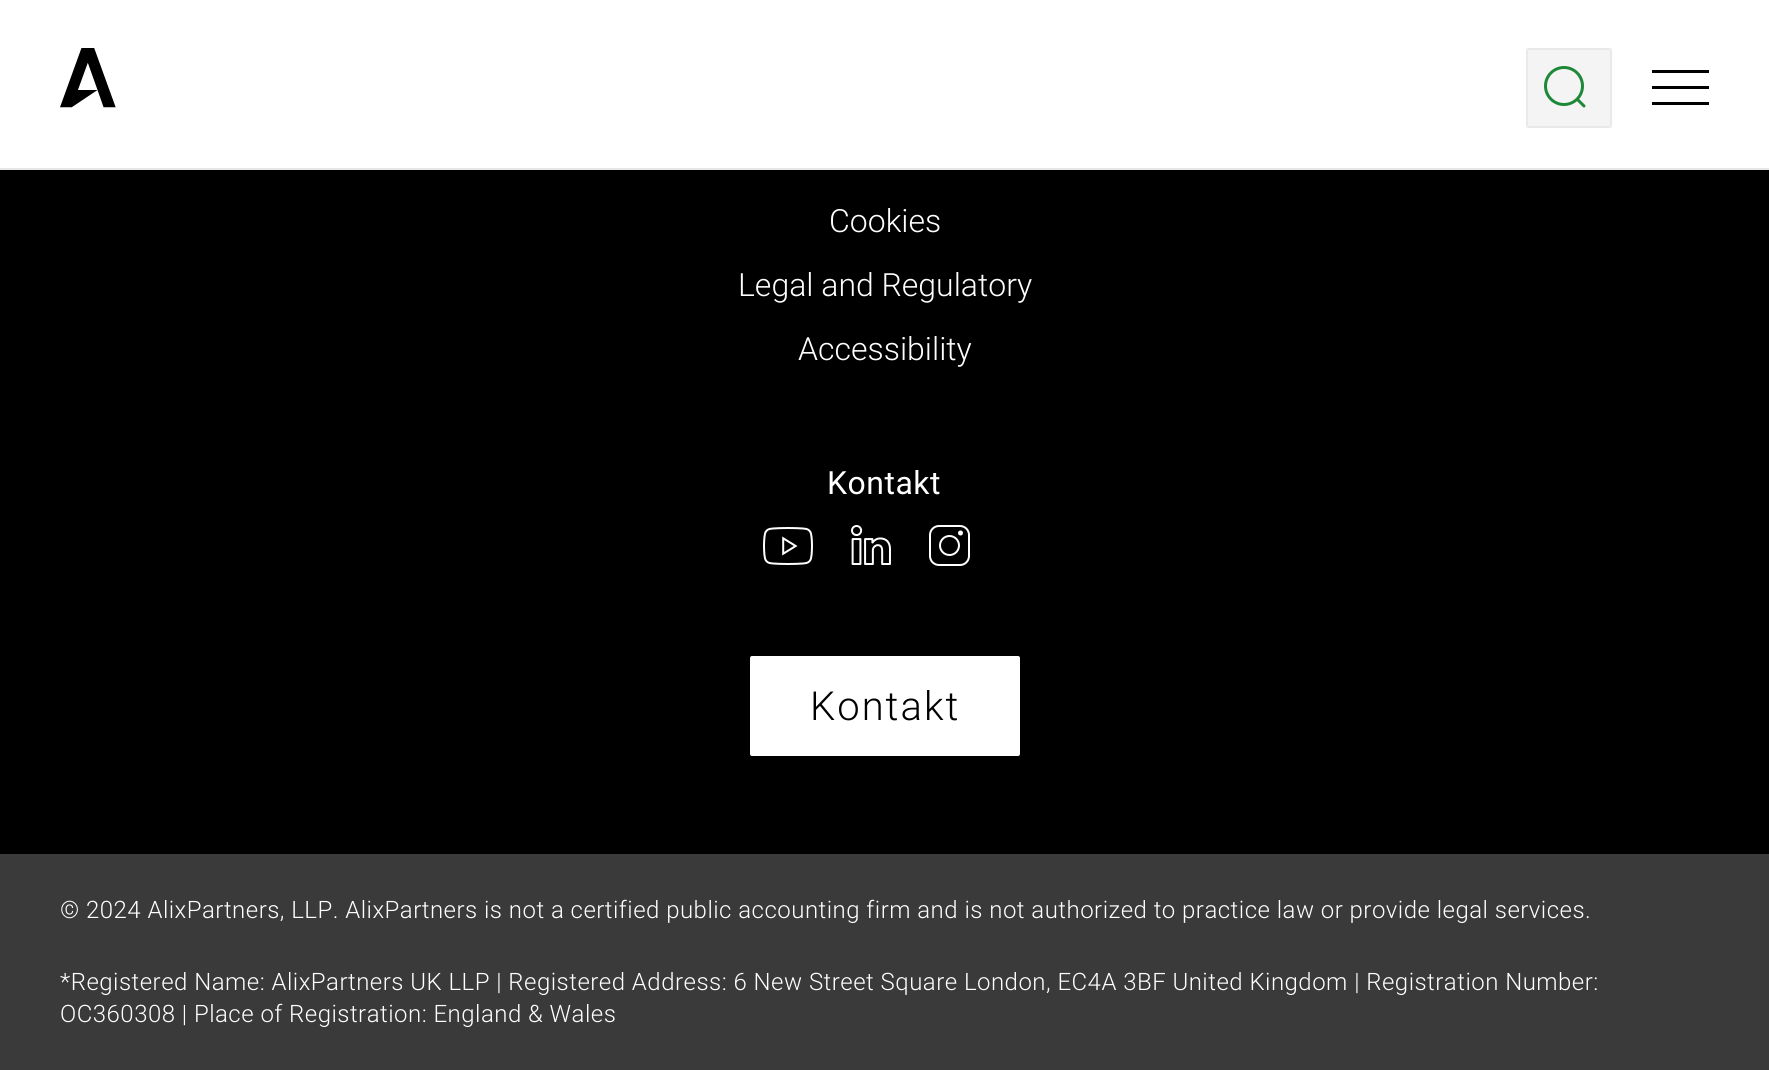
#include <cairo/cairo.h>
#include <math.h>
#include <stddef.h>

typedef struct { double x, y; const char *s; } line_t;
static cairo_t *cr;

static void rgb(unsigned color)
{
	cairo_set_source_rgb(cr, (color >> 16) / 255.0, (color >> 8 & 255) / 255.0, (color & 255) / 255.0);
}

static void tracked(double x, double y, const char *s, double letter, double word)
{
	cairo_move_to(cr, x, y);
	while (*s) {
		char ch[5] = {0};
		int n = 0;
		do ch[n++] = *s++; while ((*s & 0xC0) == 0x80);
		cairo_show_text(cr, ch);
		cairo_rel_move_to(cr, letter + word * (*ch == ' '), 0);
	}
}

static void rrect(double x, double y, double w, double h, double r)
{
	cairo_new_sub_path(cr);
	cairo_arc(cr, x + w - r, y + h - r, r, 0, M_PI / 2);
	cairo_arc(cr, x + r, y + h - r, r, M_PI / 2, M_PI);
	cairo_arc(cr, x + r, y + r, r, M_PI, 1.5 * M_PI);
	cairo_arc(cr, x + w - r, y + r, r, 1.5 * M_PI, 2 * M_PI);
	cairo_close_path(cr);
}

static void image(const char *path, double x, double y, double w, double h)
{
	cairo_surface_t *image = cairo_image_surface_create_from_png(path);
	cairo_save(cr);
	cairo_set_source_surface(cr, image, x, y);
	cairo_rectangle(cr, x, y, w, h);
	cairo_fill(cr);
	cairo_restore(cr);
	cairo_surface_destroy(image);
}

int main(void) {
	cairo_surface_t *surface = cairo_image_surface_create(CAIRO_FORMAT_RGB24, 1769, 1070);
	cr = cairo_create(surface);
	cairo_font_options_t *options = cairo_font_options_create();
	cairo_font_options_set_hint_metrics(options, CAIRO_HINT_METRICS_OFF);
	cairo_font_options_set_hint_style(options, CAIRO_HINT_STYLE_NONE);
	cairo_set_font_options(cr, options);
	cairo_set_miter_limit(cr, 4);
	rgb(0x000000);
	cairo_paint(cr);
	rgb(0xffffff);
	cairo_rectangle(cr, 0, 0, 1769, 168);
	cairo_fill(cr);
	rgb(0xe6e6e6);
	cairo_rectangle(cr, 0, 168, 1769, 2);
	cairo_fill(cr);
	image("img/1.png", 60, 48, 56, 60);
	rgb(0xf4f4f4);
	rrect(1526, 48, 86, 80, 4);
	cairo_fill(cr);
	cairo_rectangle(cr, 1527, 49, 84, 78);
	cairo_set_source_rgba(cr, 0, 0, 0, 0.05);
	cairo_stroke(cr);
	cairo_arc(cr, 1564, 86, 18.5, 0, 2 * M_PI);
	rgb(0x1d8837);
	cairo_set_line_width(cr, 3);
	cairo_stroke(cr);
	cairo_new_path(cr);
	cairo_move_to(cr, 1578, 100);
	cairo_line_to(cr, 1584, 106);
	cairo_set_line_cap(cr, CAIRO_LINE_CAP_ROUND);
	cairo_stroke(cr);
	rgb(0x000000);
	cairo_new_path(cr);
	cairo_move_to(cr, 1652, 105);
	cairo_line_to(cr, 1652, 102);
	cairo_line_to(cr, 1709, 102);
	cairo_line_to(cr, 1709, 105);
	cairo_close_path(cr);
	cairo_move_to(cr, 1652, 89);
	cairo_line_to(cr, 1652, 86);
	cairo_line_to(cr, 1709, 86);
	cairo_line_to(cr, 1709, 89);
	cairo_close_path(cr);
	cairo_move_to(cr, 1652, 73);
	cairo_line_to(cr, 1652, 70);
	cairo_line_to(cr, 1709, 70);
	cairo_line_to(cr, 1709, 73);
	cairo_close_path(cr);
	cairo_fill(cr);
	image("img/2.png", 763, 527, 50, 38);
	image("img/3.png", 851, 525, 40, 40);
	rrect(930, 526, 39, 39, 9);
	rgb(0xffffff);
	cairo_set_line_width(cr, 2);
	cairo_set_line_cap(cr, CAIRO_LINE_CAP_BUTT);
	cairo_stroke(cr);
	cairo_arc(cr, 949.5, 545.5, 9.5, 0, 2 * M_PI);
	cairo_stroke(cr);
	cairo_arc(cr, 960.5, 533, 2.5, 0, 2 * M_PI);
	cairo_fill(cr);
	rrect(749, 655, 272, 102, 3);
	cairo_fill_preserve(cr);
	rgb(0x000000);
	cairo_stroke(cr);
	rgb(0x3a3a3a);
	cairo_rectangle(cr, 0, 854, 1769, 216);
	cairo_fill(cr);
	cairo_select_font_face(cr, "Roboto Light", CAIRO_FONT_SLANT_NORMAL, CAIRO_FONT_WEIGHT_NORMAL);
	cairo_set_font_size(cr, 32);
	rgb(0xffffff);
	{
		static const line_t items[] = {
			{829, 232, "Cookies"},
			{738, 296, "Legal and Regulatory"},
			{798, 360, "Accessibility"},
		};
		for (size_t i = 0; i < sizeof items / sizeof *items; i++) {
			cairo_move_to(cr, items[i].x, items[i].y);
			cairo_show_text(cr, items[i].s);
		}
	}
	cairo_select_font_face(cr, "Roboto", CAIRO_FONT_SLANT_NORMAL, CAIRO_FONT_WEIGHT_NORMAL);
	tracked(827, 494, "Kontakt", 0.5, 0);
	cairo_select_font_face(cr, "Roboto Light", CAIRO_FONT_SLANT_NORMAL, CAIRO_FONT_WEIGHT_NORMAL);
	cairo_set_font_size(cr, 40);
	rgb(0x000000);
	tracked(810, 720, "Kontakt", 2, 0);
	cairo_set_font_size(cr, 24);
	rgb(0xffffff);
	{
		static const line_t items[] = {
			{60, 918, "© 2024 AlixPartners, LLP. AlixPartners is not a certified public accounting firm and is not authorized to practice law or provide legal services."},
			{60, 990, "*Registered Name: AlixPartners UK LLP | Registered Address: 6 New Street Square London, EC4A 3BF United Kingdom | Registration Number:"},
			{60, 1022, "OC360308 | Place of Registration: England & Wales"},
		};
		for (size_t i = 0; i < sizeof items / sizeof *items; i++) {
			tracked(items[i].x, items[i].y, items[i].s, 0.48, 0);
		}
	}
	cairo_surface_write_to_png(surface, "page.png");
	cairo_font_options_destroy(options);
	cairo_destroy(cr);
	cairo_surface_destroy(surface);
	return 0;
}
